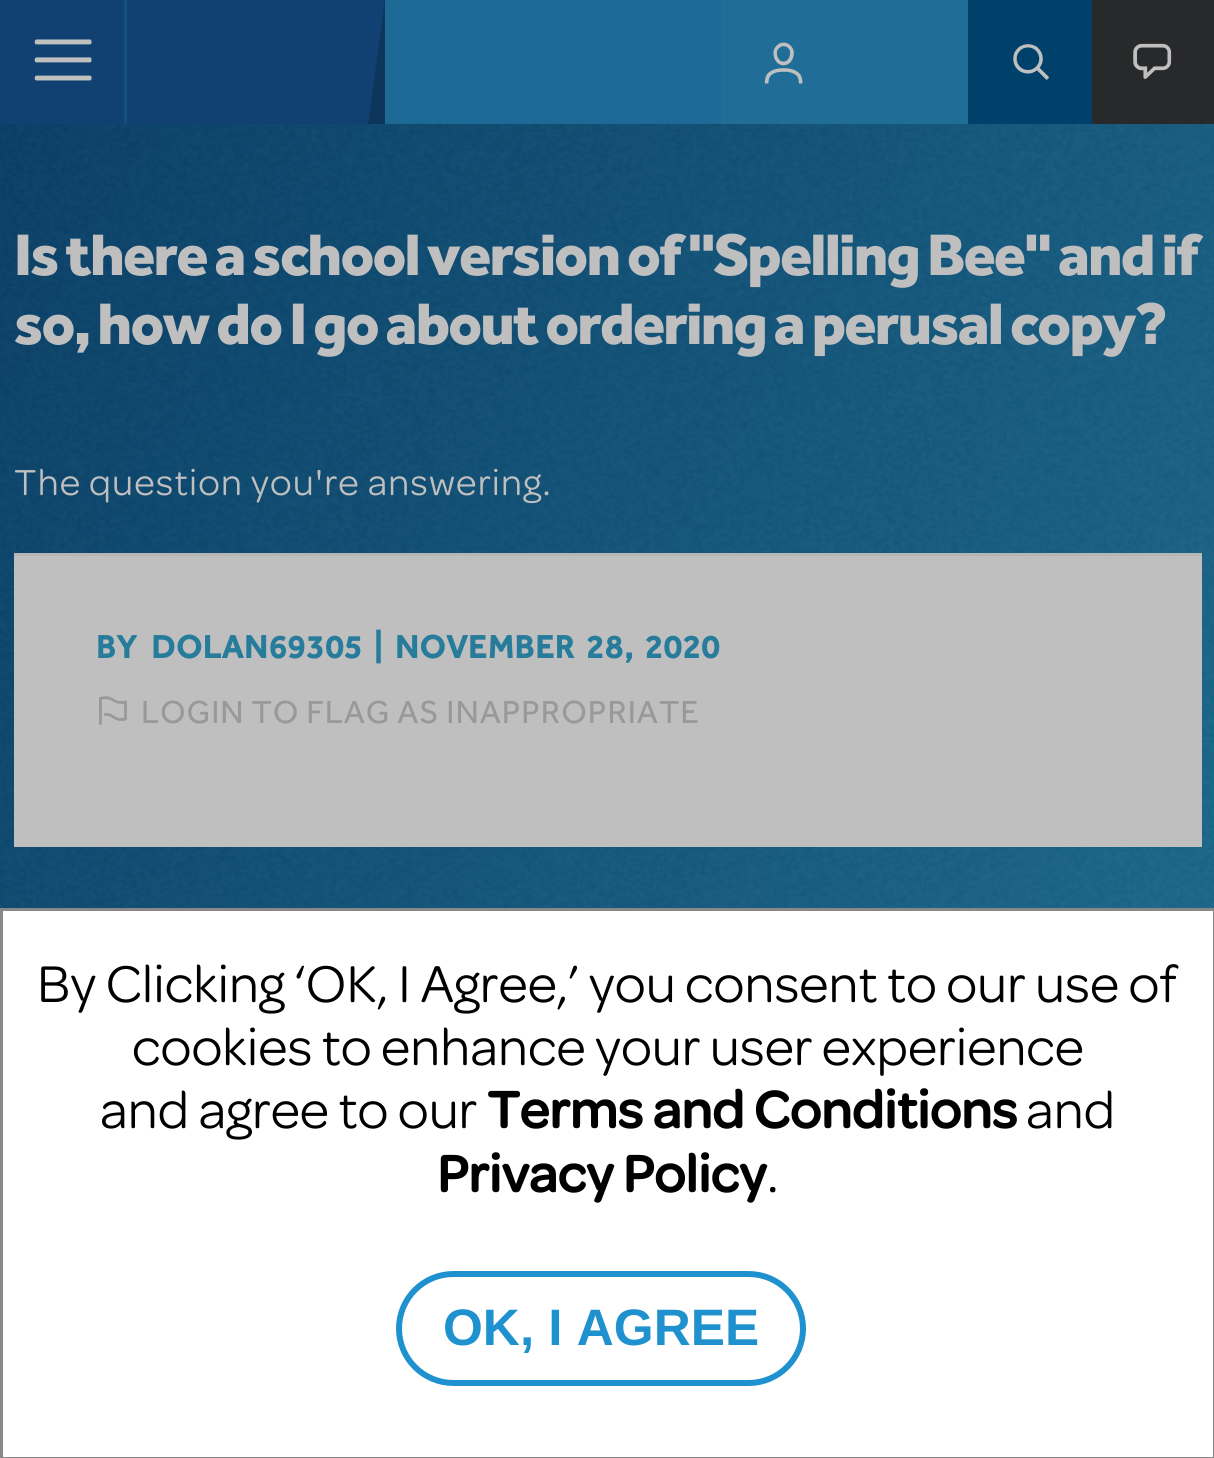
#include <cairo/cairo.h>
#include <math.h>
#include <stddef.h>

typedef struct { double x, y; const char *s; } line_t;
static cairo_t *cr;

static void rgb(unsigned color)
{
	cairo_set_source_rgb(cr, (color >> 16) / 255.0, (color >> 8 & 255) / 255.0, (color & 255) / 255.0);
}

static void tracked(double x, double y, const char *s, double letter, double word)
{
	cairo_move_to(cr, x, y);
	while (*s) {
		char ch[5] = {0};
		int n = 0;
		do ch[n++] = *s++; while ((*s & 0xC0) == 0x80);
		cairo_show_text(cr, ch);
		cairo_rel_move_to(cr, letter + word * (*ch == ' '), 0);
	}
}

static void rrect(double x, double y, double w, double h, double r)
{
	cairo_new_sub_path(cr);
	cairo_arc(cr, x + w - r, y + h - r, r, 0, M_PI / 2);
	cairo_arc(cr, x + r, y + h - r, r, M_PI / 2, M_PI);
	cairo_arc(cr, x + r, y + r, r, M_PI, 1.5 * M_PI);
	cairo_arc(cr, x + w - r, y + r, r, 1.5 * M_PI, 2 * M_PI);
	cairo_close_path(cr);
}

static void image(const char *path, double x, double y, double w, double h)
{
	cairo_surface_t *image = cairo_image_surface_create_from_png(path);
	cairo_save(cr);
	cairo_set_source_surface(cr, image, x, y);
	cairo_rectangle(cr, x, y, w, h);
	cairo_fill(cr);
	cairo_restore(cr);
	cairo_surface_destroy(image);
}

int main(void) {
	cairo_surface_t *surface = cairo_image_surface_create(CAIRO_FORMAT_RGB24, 1214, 1458);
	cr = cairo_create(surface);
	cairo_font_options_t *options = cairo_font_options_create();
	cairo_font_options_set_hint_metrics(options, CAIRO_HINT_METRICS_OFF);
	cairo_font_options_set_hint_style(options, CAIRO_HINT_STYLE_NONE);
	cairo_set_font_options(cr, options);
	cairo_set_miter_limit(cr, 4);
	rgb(0x1c6a95);
	cairo_paint(cr);
	image("img/5.png", 0, 123, 1214, 785);
	rgb(0x114173);
	cairo_rectangle(cr, 0, 0, 124, 124);
	cairo_fill(cr);
	image("img/1.png", 34, 39, 58, 42);
	cairo_rectangle(cr, 127, 0, 258, 124);
	cairo_fill(cr);
	rgb(0x154e7d);
	cairo_rectangle(cr, 124, 0, 3, 124);
	cairo_fill(cr);
	rgb(0x0e355c);
	cairo_new_path(cr);
	cairo_move_to(cr, 385, 124);
	cairo_line_to(cr, 368, 124);
	cairo_line_to(cr, 385, 0);
	cairo_close_path(cr);
	cairo_fill(cr);
	rgb(0x206e98);
	cairo_rectangle(cr, 721, 0, 247, 124);
	cairo_fill(cr);
	image("img/2.png", 764, 42, 39, 42);
	rgb(0x00416b);
	cairo_rectangle(cr, 968, 0, 124, 124);
	cairo_fill(cr);
	image("img/3.png", 1013, 44, 37, 36);
	rgb(0x28292b);
	cairo_rectangle(cr, 1092, 0, 122, 124);
	cairo_fill(cr);
	image("img/4.png", 1133, 43, 39, 36);
	rgb(0xbfbfbf);
	cairo_rectangle(cr, 14, 556, 1188, 291);
	cairo_fill(cr);
	rgb(0xb6b6b6);
	cairo_rectangle(cr, 14, 553, 1188, 3);
	cairo_fill(cr);
	image("img/6.png", 99, 696, 28, 29);
	rgb(0xffffff);
	cairo_rectangle(cr, 1.5, 909.5, 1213, 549);
	cairo_fill_preserve(cr);
	rgb(0x888888);
	cairo_set_line_width(cr, 3);
	cairo_stroke(cr);
	rrect(399, 1274, 404, 109, 54.5);
	rgb(0x1e91ce);
	cairo_set_line_width(cr, 6);
	cairo_stroke(cr);
	cairo_select_font_face(cr, "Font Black", CAIRO_FONT_SLANT_NORMAL, CAIRO_FONT_WEIGHT_NORMAL);
	cairo_set_font_size(cr, 60.5);
	rgb(0xbfbfbf);
	tracked(14, 275, "Is there a school version of \"Spelling Bee\" and if", -1.82, 0);
	tracked(14, 344, "so, how do I go about ordering a perusal copy?", -1.82, 0);
	cairo_select_font_face(cr, "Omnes", CAIRO_FONT_SLANT_NORMAL, CAIRO_FONT_WEIGHT_NORMAL);
	cairo_set_font_size(cr, 38.5);
	tracked(14, 495, "The question you're answering.", 1.15, 0);
	cairo_select_font_face(cr, "Font", CAIRO_FONT_SLANT_NORMAL, CAIRO_FONT_WEIGHT_BOLD);
	cairo_set_font_size(cr, 33);
	rgb(0x287c9b);
	tracked(96, 658, "BY DOLAN69305", 0.9, 7);
	tracked(374, 658, "|", 0.9, 0);
	tracked(395, 658, "NOVEMBER 28, 2020", 0.9, 4);
	cairo_select_font_face(cr, "Font", CAIRO_FONT_SLANT_NORMAL, CAIRO_FONT_WEIGHT_NORMAL);
	rgb(0x999999);
	tracked(141, 723, "LOGIN TO FLAG AS INAPPROPRIATE", 0.9, 0);
	cairo_select_font_face(cr, "Omnes", CAIRO_FONT_SLANT_NORMAL, CAIRO_FONT_WEIGHT_NORMAL);
	cairo_set_font_size(cr, 55);
	rgb(0x000000);
	{
		static const line_t items[] = {
			{37, 1002, "By Clicking ‘OK, I Agree,’ you consent to our use of"},
			{132, 1065, "cookies to enhance your user experience"},
			{100, 1128, "and agree to our"},
		};
		for (size_t i = 0; i < sizeof items / sizeof *items; i++) {
			cairo_move_to(cr, items[i].x, items[i].y);
			cairo_show_text(cr, items[i].s);
		}
	}
	cairo_select_font_face(cr, "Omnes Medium", CAIRO_FONT_SLANT_NORMAL, CAIRO_FONT_WEIGHT_BOLD);
	cairo_move_to(cr, 487, 1128);
	cairo_show_text(cr, "Terms and Conditions");
	cairo_select_font_face(cr, "Omnes", CAIRO_FONT_SLANT_NORMAL, CAIRO_FONT_WEIGHT_NORMAL);
	cairo_move_to(cr, 1026, 1128);
	cairo_show_text(cr, "and");
	cairo_select_font_face(cr, "Omnes Medium", CAIRO_FONT_SLANT_NORMAL, CAIRO_FONT_WEIGHT_BOLD);
	cairo_move_to(cr, 437, 1192);
	cairo_show_text(cr, "Privacy Policy");
	cairo_select_font_face(cr, "Omnes", CAIRO_FONT_SLANT_NORMAL, CAIRO_FONT_WEIGHT_NORMAL);
	cairo_move_to(cr, 767, 1192);
	cairo_show_text(cr, ".");
	cairo_select_font_face(cr, "Liberation Sans", CAIRO_FONT_SLANT_NORMAL, CAIRO_FONT_WEIGHT_BOLD);
	cairo_set_font_size(cr, 51.25);
	rgb(0x1e91ce);
	cairo_move_to(cr, 443, 1345);
	cairo_show_text(cr, "OK, I AGREE");
	cairo_surface_write_to_png(surface, "page.png");
	cairo_font_options_destroy(options);
	cairo_destroy(cr);
	cairo_surface_destroy(surface);
	return 0;
}
